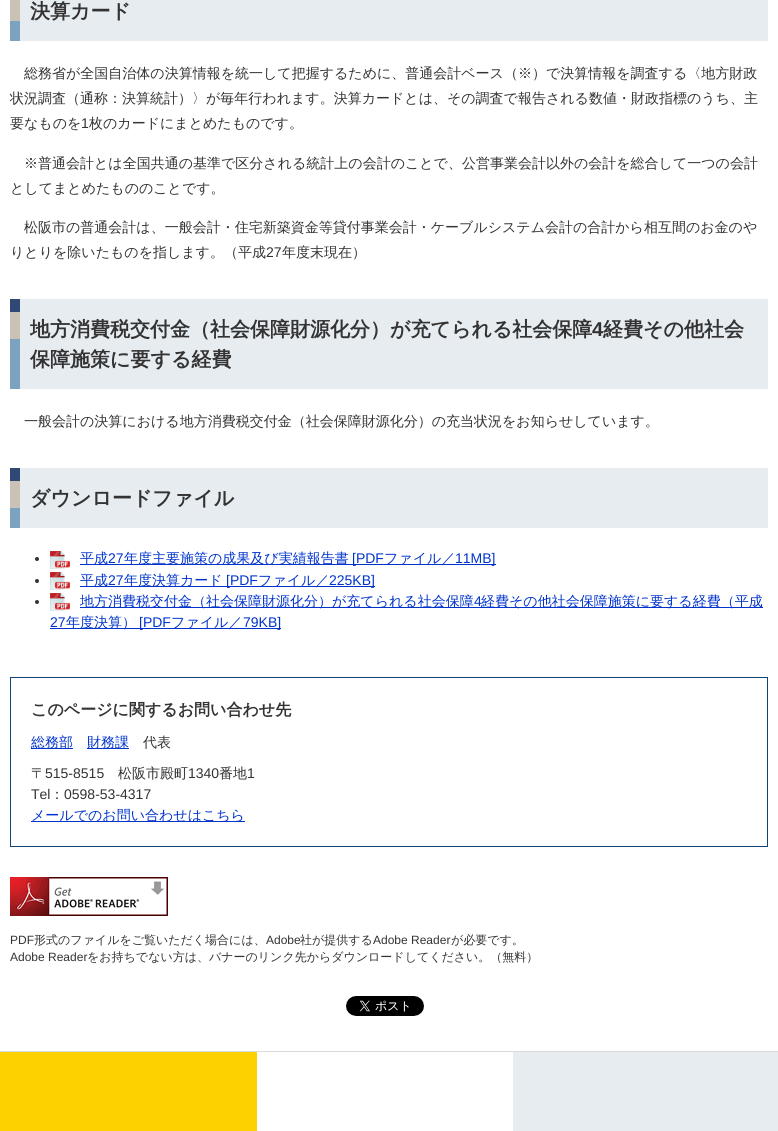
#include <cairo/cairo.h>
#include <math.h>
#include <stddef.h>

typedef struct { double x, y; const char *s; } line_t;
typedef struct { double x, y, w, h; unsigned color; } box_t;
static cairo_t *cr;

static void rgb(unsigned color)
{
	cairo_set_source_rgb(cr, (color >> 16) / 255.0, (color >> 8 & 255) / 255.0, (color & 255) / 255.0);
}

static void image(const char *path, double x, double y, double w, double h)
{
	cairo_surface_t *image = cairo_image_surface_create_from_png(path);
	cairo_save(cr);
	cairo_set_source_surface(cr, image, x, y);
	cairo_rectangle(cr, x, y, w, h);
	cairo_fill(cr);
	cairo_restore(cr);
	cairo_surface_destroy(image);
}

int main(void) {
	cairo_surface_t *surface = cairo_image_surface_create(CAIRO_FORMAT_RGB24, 778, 1131);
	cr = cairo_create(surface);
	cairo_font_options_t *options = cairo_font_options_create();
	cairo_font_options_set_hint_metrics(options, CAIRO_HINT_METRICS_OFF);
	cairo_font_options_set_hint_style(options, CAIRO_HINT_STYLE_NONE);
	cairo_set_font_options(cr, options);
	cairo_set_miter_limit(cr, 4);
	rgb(0xffffff);
	cairo_paint(cr);
	{
		static const box_t items[] = {
			{20, 0, 748, 41, 0xe7ecf1},
			{10, 21, 10, 20, 0x7ba2bf},
			{10, 0, 10, 21, 0xcbc2b7},
			{20, 299, 748, 90, 0xe7ecf1},
			{10, 339, 10, 50, 0x7ba2bf},
			{10, 299, 10, 13, 0x304974},
			{10, 312, 10, 27, 0xcbc2b7},
			{20, 468, 748, 60, 0xe7ecf1},
			{10, 508, 10, 20, 0x7ba2bf},
			{10, 468, 10, 13, 0x304974},
			{10, 481, 10, 27, 0xcbc2b7},
		};
		for (size_t i = 0; i < sizeof items / sizeof *items; i++) {
			rgb(items[i].color);
			cairo_rectangle(cr, items[i].x, items[i].y, items[i].w, items[i].h);
			cairo_fill(cr);
		}
	}
	rgb(0x333333);
	cairo_arc(cr, 37, 559, 2, 0, 2 * M_PI);
	cairo_fill(cr);
	image("img/1.png", 50, 551, 20, 18);
	rgb(0x0033cc);
	cairo_rectangle(cr, 80, 564, 416, 1);
	cairo_fill(cr);
	rgb(0x333333);
	cairo_arc(cr, 37, 581, 2, 0, 2 * M_PI);
	cairo_fill(cr);
	image("img/1.png", 50, 572, 20, 18);
	rgb(0x0033cc);
	cairo_rectangle(cr, 80, 586, 295, 1);
	cairo_fill(cr);
	rgb(0x333333);
	cairo_arc(cr, 37, 602, 2, 0, 2 * M_PI);
	cairo_fill(cr);
	image("img/1.png", 50, 593, 20, 18);
	rgb(0x0033cc);
	cairo_rectangle(cr, 80, 607, 683, 1);
	cairo_fill(cr);
	cairo_rectangle(cr, 50, 628, 231, 1);
	cairo_fill(cr);
	cairo_rectangle(cr, 10.5, 677.5, 757, 169);
	rgb(0x124374);
	cairo_set_line_width(cr, 1);
	cairo_stroke(cr);
	{
		static const box_t items[] = {
			{31, 748, 42, 1, 0x0033cc},
			{87, 748, 42, 1, 0x0033cc},
			{31, 821, 214, 1, 0x0033cc},
		};
		for (size_t i = 0; i < sizeof items / sizeof *items; i++) {
			rgb(items[i].color);
			cairo_rectangle(cr, items[i].x, items[i].y, items[i].w, items[i].h);
			cairo_fill(cr);
		}
	}
	image("img/2.png", 10, 877, 158, 39);
	image("img/3.png", 346, 996, 78, 20);
	{
		static const box_t items[] = {
			{0, 1052, 257, 79, 0xfdd000},
			{0, 1051, 778, 1, 0xd9d9d9},
			{513, 1052, 265, 79, 0xe7ecf1},
		};
		for (size_t i = 0; i < sizeof items / sizeof *items; i++) {
			rgb(items[i].color);
			cairo_rectangle(cr, items[i].x, items[i].y, items[i].w, items[i].h);
			cairo_fill(cr);
		}
	}
	cairo_select_font_face(cr, "WenQuanYi Zen Hei", CAIRO_FONT_SLANT_NORMAL, CAIRO_FONT_WEIGHT_BOLD);
	cairo_set_font_size(cr, 20);
	rgb(0x333333);
	cairo_move_to(cr, 30, 18);
	cairo_show_text(cr, "決算カード");
	cairo_select_font_face(cr, "WenQuanYi Zen Hei Medium", CAIRO_FONT_SLANT_NORMAL, CAIRO_FONT_WEIGHT_NORMAL);
	cairo_set_font_size(cr, 14);
	{
		static const line_t items[] = {
			{24, 78, "総務省が全国自治体の決算情報を統一して把握するために、普通会計ベース（※）で決算情報を調査する〈地方財政"},
			{10, 103, "状況調査（通称：決算統計）〉が毎年行われます。決算カードとは、その調査で報告される数値・財政指標のうち、主"},
			{10, 128, "要なものを"},
		};
		for (size_t i = 0; i < sizeof items / sizeof *items; i++) {
			cairo_move_to(cr, items[i].x, items[i].y);
			cairo_show_text(cr, items[i].s);
		}
	}
	cairo_select_font_face(cr, "Liberation Sans", CAIRO_FONT_SLANT_NORMAL, CAIRO_FONT_WEIGHT_NORMAL);
	cairo_move_to(cr, 81, 128);
	cairo_show_text(cr, "1");
	cairo_select_font_face(cr, "WenQuanYi Zen Hei Medium", CAIRO_FONT_SLANT_NORMAL, CAIRO_FONT_WEIGHT_NORMAL);
	{
		static const line_t items[] = {
			{89, 128, "枚のカードにまとめたものです。"},
			{24, 168, "※普通会計とは全国共通の基準で区分される統計上の会計のことで、公営事業会計以外の会計を総合して一つの会計"},
			{10, 193, "としてまとめたもののことです。"},
			{24, 232, "松阪市の普通会計は、一般会計・住宅新築資金等貸付事業会計・ケーブルシステム会計の合計から相互間のお金のや"},
			{10, 257, "りとりを除いたものを指します。（平成"},
		};
		for (size_t i = 0; i < sizeof items / sizeof *items; i++) {
			cairo_move_to(cr, items[i].x, items[i].y);
			cairo_show_text(cr, items[i].s);
		}
	}
	cairo_select_font_face(cr, "Liberation Sans", CAIRO_FONT_SLANT_NORMAL, CAIRO_FONT_WEIGHT_NORMAL);
	cairo_move_to(cr, 266, 257);
	cairo_show_text(cr, "27");
	cairo_select_font_face(cr, "WenQuanYi Zen Hei Medium", CAIRO_FONT_SLANT_NORMAL, CAIRO_FONT_WEIGHT_NORMAL);
	cairo_move_to(cr, 282, 257);
	cairo_show_text(cr, "年度末現在）");
	cairo_select_font_face(cr, "WenQuanYi Zen Hei", CAIRO_FONT_SLANT_NORMAL, CAIRO_FONT_WEIGHT_BOLD);
	cairo_set_font_size(cr, 20);
	cairo_move_to(cr, 30, 336);
	cairo_show_text(cr, "地方消費税交付金（社会保障財源化分）が充てられる社会保障");
	cairo_select_font_face(cr, "Liberation Sans", CAIRO_FONT_SLANT_NORMAL, CAIRO_FONT_WEIGHT_BOLD);
	cairo_move_to(cr, 592, 336);
	cairo_show_text(cr, "4");
	cairo_select_font_face(cr, "WenQuanYi Zen Hei", CAIRO_FONT_SLANT_NORMAL, CAIRO_FONT_WEIGHT_BOLD);
	cairo_move_to(cr, 603, 336);
	cairo_show_text(cr, "経費その他社会");
	cairo_move_to(cr, 30, 366);
	cairo_show_text(cr, "保障施策に要する経費");
	cairo_select_font_face(cr, "WenQuanYi Zen Hei Medium", CAIRO_FONT_SLANT_NORMAL, CAIRO_FONT_WEIGHT_NORMAL);
	cairo_set_font_size(cr, 14);
	cairo_move_to(cr, 24, 426);
	cairo_show_text(cr, "一般会計の決算における地方消費税交付金（社会保障財源化分）の充当状況をお知らせしています。");
	cairo_select_font_face(cr, "WenQuanYi Zen Hei", CAIRO_FONT_SLANT_NORMAL, CAIRO_FONT_WEIGHT_BOLD);
	cairo_set_font_size(cr, 20);
	cairo_move_to(cr, 30, 505);
	cairo_show_text(cr, "ダウンロードファイル");
	cairo_select_font_face(cr, "WenQuanYi Zen Hei Medium", CAIRO_FONT_SLANT_NORMAL, CAIRO_FONT_WEIGHT_NORMAL);
	cairo_set_font_size(cr, 14);
	rgb(0x0033cc);
	cairo_move_to(cr, 80, 563);
	cairo_show_text(cr, "平成");
	cairo_select_font_face(cr, "Liberation Sans", CAIRO_FONT_SLANT_NORMAL, CAIRO_FONT_WEIGHT_NORMAL);
	cairo_move_to(cr, 108, 563);
	cairo_show_text(cr, "27");
	cairo_select_font_face(cr, "WenQuanYi Zen Hei Medium", CAIRO_FONT_SLANT_NORMAL, CAIRO_FONT_WEIGHT_NORMAL);
	cairo_move_to(cr, 124, 563);
	cairo_show_text(cr, "年度主要施策の成果及び実績報告書");
	cairo_select_font_face(cr, "Liberation Sans", CAIRO_FONT_SLANT_NORMAL, CAIRO_FONT_WEIGHT_NORMAL);
	cairo_move_to(cr, 352, 563);
	cairo_show_text(cr, "[PDF");
	cairo_select_font_face(cr, "WenQuanYi Zen Hei Medium", CAIRO_FONT_SLANT_NORMAL, CAIRO_FONT_WEIGHT_NORMAL);
	cairo_move_to(cr, 384, 563);
	cairo_show_text(cr, "ファイル／");
	cairo_select_font_face(cr, "Liberation Sans", CAIRO_FONT_SLANT_NORMAL, CAIRO_FONT_WEIGHT_NORMAL);
	cairo_move_to(cr, 455, 563);
	cairo_show_text(cr, "11MB]");
	cairo_select_font_face(cr, "WenQuanYi Zen Hei Medium", CAIRO_FONT_SLANT_NORMAL, CAIRO_FONT_WEIGHT_NORMAL);
	cairo_move_to(cr, 80, 585);
	cairo_show_text(cr, "平成");
	cairo_select_font_face(cr, "Liberation Sans", CAIRO_FONT_SLANT_NORMAL, CAIRO_FONT_WEIGHT_NORMAL);
	cairo_move_to(cr, 108, 585);
	cairo_show_text(cr, "27");
	cairo_select_font_face(cr, "WenQuanYi Zen Hei Medium", CAIRO_FONT_SLANT_NORMAL, CAIRO_FONT_WEIGHT_NORMAL);
	cairo_move_to(cr, 124, 585);
	cairo_show_text(cr, "年度決算カード");
	cairo_select_font_face(cr, "Liberation Sans", CAIRO_FONT_SLANT_NORMAL, CAIRO_FONT_WEIGHT_NORMAL);
	cairo_move_to(cr, 226, 585);
	cairo_show_text(cr, "[PDF");
	cairo_select_font_face(cr, "WenQuanYi Zen Hei Medium", CAIRO_FONT_SLANT_NORMAL, CAIRO_FONT_WEIGHT_NORMAL);
	cairo_move_to(cr, 258, 585);
	cairo_show_text(cr, "ファイル／");
	cairo_select_font_face(cr, "Liberation Sans", CAIRO_FONT_SLANT_NORMAL, CAIRO_FONT_WEIGHT_NORMAL);
	cairo_move_to(cr, 329, 585);
	cairo_show_text(cr, "225KB]");
	cairo_select_font_face(cr, "WenQuanYi Zen Hei Medium", CAIRO_FONT_SLANT_NORMAL, CAIRO_FONT_WEIGHT_NORMAL);
	cairo_move_to(cr, 80, 606);
	cairo_show_text(cr, "地方消費税交付金（社会保障財源化分）が充てられる社会保障");
	cairo_select_font_face(cr, "Liberation Sans", CAIRO_FONT_SLANT_NORMAL, CAIRO_FONT_WEIGHT_NORMAL);
	cairo_move_to(cr, 474, 606);
	cairo_show_text(cr, "4");
	cairo_select_font_face(cr, "WenQuanYi Zen Hei Medium", CAIRO_FONT_SLANT_NORMAL, CAIRO_FONT_WEIGHT_NORMAL);
	cairo_move_to(cr, 481, 606);
	cairo_show_text(cr, "経費その他社会保障施策に要する経費（平成");
	cairo_select_font_face(cr, "Liberation Sans", CAIRO_FONT_SLANT_NORMAL, CAIRO_FONT_WEIGHT_NORMAL);
	cairo_move_to(cr, 50, 627);
	cairo_show_text(cr, "27");
	cairo_select_font_face(cr, "WenQuanYi Zen Hei Medium", CAIRO_FONT_SLANT_NORMAL, CAIRO_FONT_WEIGHT_NORMAL);
	cairo_move_to(cr, 66, 627);
	cairo_show_text(cr, "年度決算）");
	cairo_select_font_face(cr, "Liberation Sans", CAIRO_FONT_SLANT_NORMAL, CAIRO_FONT_WEIGHT_NORMAL);
	cairo_move_to(cr, 139, 627);
	cairo_show_text(cr, "[PDF");
	cairo_select_font_face(cr, "WenQuanYi Zen Hei Medium", CAIRO_FONT_SLANT_NORMAL, CAIRO_FONT_WEIGHT_NORMAL);
	cairo_move_to(cr, 171, 627);
	cairo_show_text(cr, "ファイル／");
	cairo_select_font_face(cr, "Liberation Sans", CAIRO_FONT_SLANT_NORMAL, CAIRO_FONT_WEIGHT_NORMAL);
	cairo_move_to(cr, 243, 627);
	cairo_show_text(cr, "79KB]");
	cairo_select_font_face(cr, "WenQuanYi Zen Hei", CAIRO_FONT_SLANT_NORMAL, CAIRO_FONT_WEIGHT_BOLD);
	cairo_set_font_size(cr, 16);
	rgb(0x333333);
	cairo_move_to(cr, 31, 715);
	cairo_show_text(cr, "このページに関するお問い合わせ先");
	cairo_select_font_face(cr, "WenQuanYi Zen Hei Medium", CAIRO_FONT_SLANT_NORMAL, CAIRO_FONT_WEIGHT_NORMAL);
	cairo_set_font_size(cr, 14);
	rgb(0x0033cc);
	cairo_move_to(cr, 31, 747);
	cairo_show_text(cr, "総務部");
	cairo_move_to(cr, 87, 747);
	cairo_show_text(cr, "財務課");
	rgb(0x333333);
	cairo_move_to(cr, 143, 747);
	cairo_show_text(cr, "代表");
	cairo_move_to(cr, 31, 778);
	cairo_show_text(cr, "〒");
	cairo_select_font_face(cr, "Liberation Sans", CAIRO_FONT_SLANT_NORMAL, CAIRO_FONT_WEIGHT_NORMAL);
	cairo_move_to(cr, 45, 778);
	cairo_show_text(cr, "515-8515");
	cairo_select_font_face(cr, "WenQuanYi Zen Hei Medium", CAIRO_FONT_SLANT_NORMAL, CAIRO_FONT_WEIGHT_NORMAL);
	cairo_move_to(cr, 118, 778);
	cairo_show_text(cr, "松阪市殿町");
	cairo_select_font_face(cr, "Liberation Sans", CAIRO_FONT_SLANT_NORMAL, CAIRO_FONT_WEIGHT_NORMAL);
	cairo_move_to(cr, 188, 778);
	cairo_show_text(cr, "1340");
	cairo_select_font_face(cr, "WenQuanYi Zen Hei Medium", CAIRO_FONT_SLANT_NORMAL, CAIRO_FONT_WEIGHT_NORMAL);
	cairo_move_to(cr, 219, 778);
	cairo_show_text(cr, "番地");
	cairo_select_font_face(cr, "Liberation Sans", CAIRO_FONT_SLANT_NORMAL, CAIRO_FONT_WEIGHT_NORMAL);
	cairo_move_to(cr, 247, 778);
	cairo_show_text(cr, "1");
	cairo_move_to(cr, 31, 799);
	cairo_show_text(cr, "Tel");
	cairo_select_font_face(cr, "WenQuanYi Zen Hei Medium", CAIRO_FONT_SLANT_NORMAL, CAIRO_FONT_WEIGHT_NORMAL);
	cairo_move_to(cr, 50, 799);
	cairo_show_text(cr, "：");
	cairo_select_font_face(cr, "Liberation Sans", CAIRO_FONT_SLANT_NORMAL, CAIRO_FONT_WEIGHT_NORMAL);
	cairo_move_to(cr, 64, 799);
	cairo_show_text(cr, "0598-53-4317");
	cairo_select_font_face(cr, "WenQuanYi Zen Hei Medium", CAIRO_FONT_SLANT_NORMAL, CAIRO_FONT_WEIGHT_NORMAL);
	rgb(0x0033cc);
	cairo_move_to(cr, 31, 820);
	cairo_show_text(cr, "メールでのお問い合わせはこちら");
	cairo_select_font_face(cr, "Liberation Sans", CAIRO_FONT_SLANT_NORMAL, CAIRO_FONT_WEIGHT_NORMAL);
	cairo_set_font_size(cr, 12);
	rgb(0x333333);
	cairo_move_to(cr, 10, 944);
	cairo_show_text(cr, "PDF");
	cairo_select_font_face(cr, "WenQuanYi Zen Hei Medium", CAIRO_FONT_SLANT_NORMAL, CAIRO_FONT_WEIGHT_NORMAL);
	cairo_move_to(cr, 34, 944);
	cairo_show_text(cr, "形式のファイルをご覧いただく場合には、");
	cairo_select_font_face(cr, "Liberation Sans", CAIRO_FONT_SLANT_NORMAL, CAIRO_FONT_WEIGHT_NORMAL);
	cairo_move_to(cr, 266, 944);
	cairo_show_text(cr, "Adobe");
	cairo_select_font_face(cr, "WenQuanYi Zen Hei Medium", CAIRO_FONT_SLANT_NORMAL, CAIRO_FONT_WEIGHT_NORMAL);
	cairo_move_to(cr, 300, 944);
	cairo_show_text(cr, "社が提供する");
	cairo_select_font_face(cr, "Liberation Sans", CAIRO_FONT_SLANT_NORMAL, CAIRO_FONT_WEIGHT_NORMAL);
	cairo_move_to(cr, 373, 944);
	cairo_show_text(cr, "Adobe Reader");
	cairo_select_font_face(cr, "WenQuanYi Zen Hei Medium", CAIRO_FONT_SLANT_NORMAL, CAIRO_FONT_WEIGHT_NORMAL);
	cairo_move_to(cr, 451, 944);
	cairo_show_text(cr, "が必要です。");
	cairo_select_font_face(cr, "Liberation Sans", CAIRO_FONT_SLANT_NORMAL, CAIRO_FONT_WEIGHT_NORMAL);
	cairo_move_to(cr, 10, 961);
	cairo_show_text(cr, "Adobe Reader");
	cairo_select_font_face(cr, "WenQuanYi Zen Hei Medium", CAIRO_FONT_SLANT_NORMAL, CAIRO_FONT_WEIGHT_NORMAL);
	cairo_move_to(cr, 87, 961);
	cairo_show_text(cr, "をお持ちでない方は、バナーのリンク先からダウンロードしてください。（無料）");
	cairo_surface_write_to_png(surface, "page.png");
	cairo_font_options_destroy(options);
	cairo_destroy(cr);
	cairo_surface_destroy(surface);
	return 0;
}
